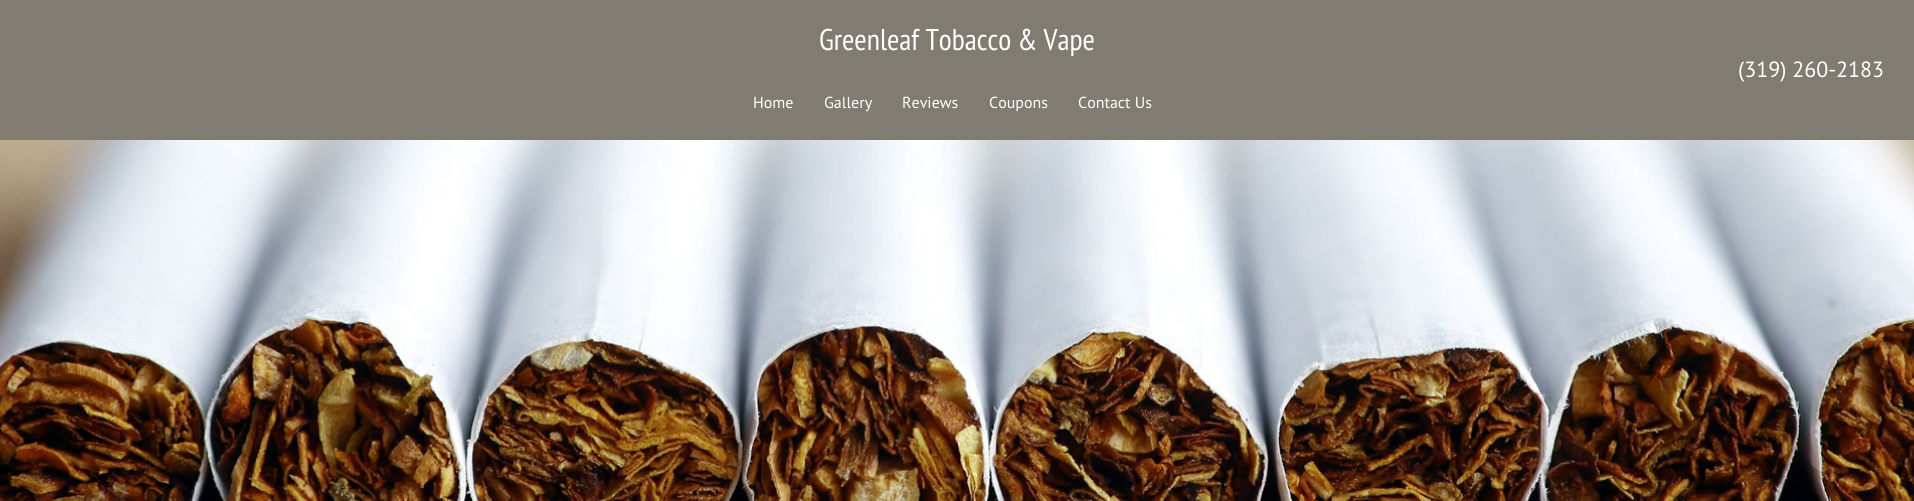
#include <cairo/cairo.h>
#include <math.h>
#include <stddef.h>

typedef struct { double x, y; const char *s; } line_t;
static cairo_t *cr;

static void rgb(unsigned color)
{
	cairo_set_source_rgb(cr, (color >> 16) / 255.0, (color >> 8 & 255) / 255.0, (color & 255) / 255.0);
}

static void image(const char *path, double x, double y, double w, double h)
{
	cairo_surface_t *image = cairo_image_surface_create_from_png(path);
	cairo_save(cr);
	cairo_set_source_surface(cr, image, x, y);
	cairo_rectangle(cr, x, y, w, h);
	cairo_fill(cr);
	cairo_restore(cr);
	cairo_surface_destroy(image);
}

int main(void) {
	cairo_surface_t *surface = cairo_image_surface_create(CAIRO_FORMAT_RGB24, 1914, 501);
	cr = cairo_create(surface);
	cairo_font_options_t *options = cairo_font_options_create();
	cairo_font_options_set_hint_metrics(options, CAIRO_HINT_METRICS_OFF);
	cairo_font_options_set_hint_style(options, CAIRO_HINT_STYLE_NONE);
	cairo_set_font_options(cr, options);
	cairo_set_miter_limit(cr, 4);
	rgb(0xffffff);
	cairo_paint(cr);
	rgb(0x807c71);
	cairo_rectangle(cr, 0, 0, 1914, 140);
	cairo_fill(cr);
	image("img/1.png", 0, 140, 1914, 361);
	cairo_select_font_face(cr, "PT Sans Narrow", CAIRO_FONT_SLANT_NORMAL, CAIRO_FONT_WEIGHT_NORMAL);
	cairo_set_font_size(cr, 30);
	rgb(0xffffff);
	cairo_move_to(cr, 819, 50);
	cairo_show_text(cr, "Greenleaf Tobacco & Vape");
	cairo_select_font_face(cr, "PT Sans", CAIRO_FONT_SLANT_NORMAL, CAIRO_FONT_WEIGHT_NORMAL);
	cairo_set_font_size(cr, 22);
	cairo_move_to(cr, 1738, 77);
	cairo_show_text(cr, "(319) 260-2183");
	cairo_set_font_size(cr, 16);
	{
		static const line_t items[] = {
			{753, 108, "Home"},
			{824, 108, "Gallery"},
			{902, 108, "Reviews"},
			{989, 108, "Coupons"},
			{1078, 108, "Contact Us"},
		};
		for (size_t i = 0; i < sizeof items / sizeof *items; i++) {
			cairo_move_to(cr, items[i].x, items[i].y);
			cairo_show_text(cr, items[i].s);
		}
	}
	cairo_surface_write_to_png(surface, "page.png");
	cairo_font_options_destroy(options);
	cairo_destroy(cr);
	cairo_surface_destroy(surface);
	return 0;
}
